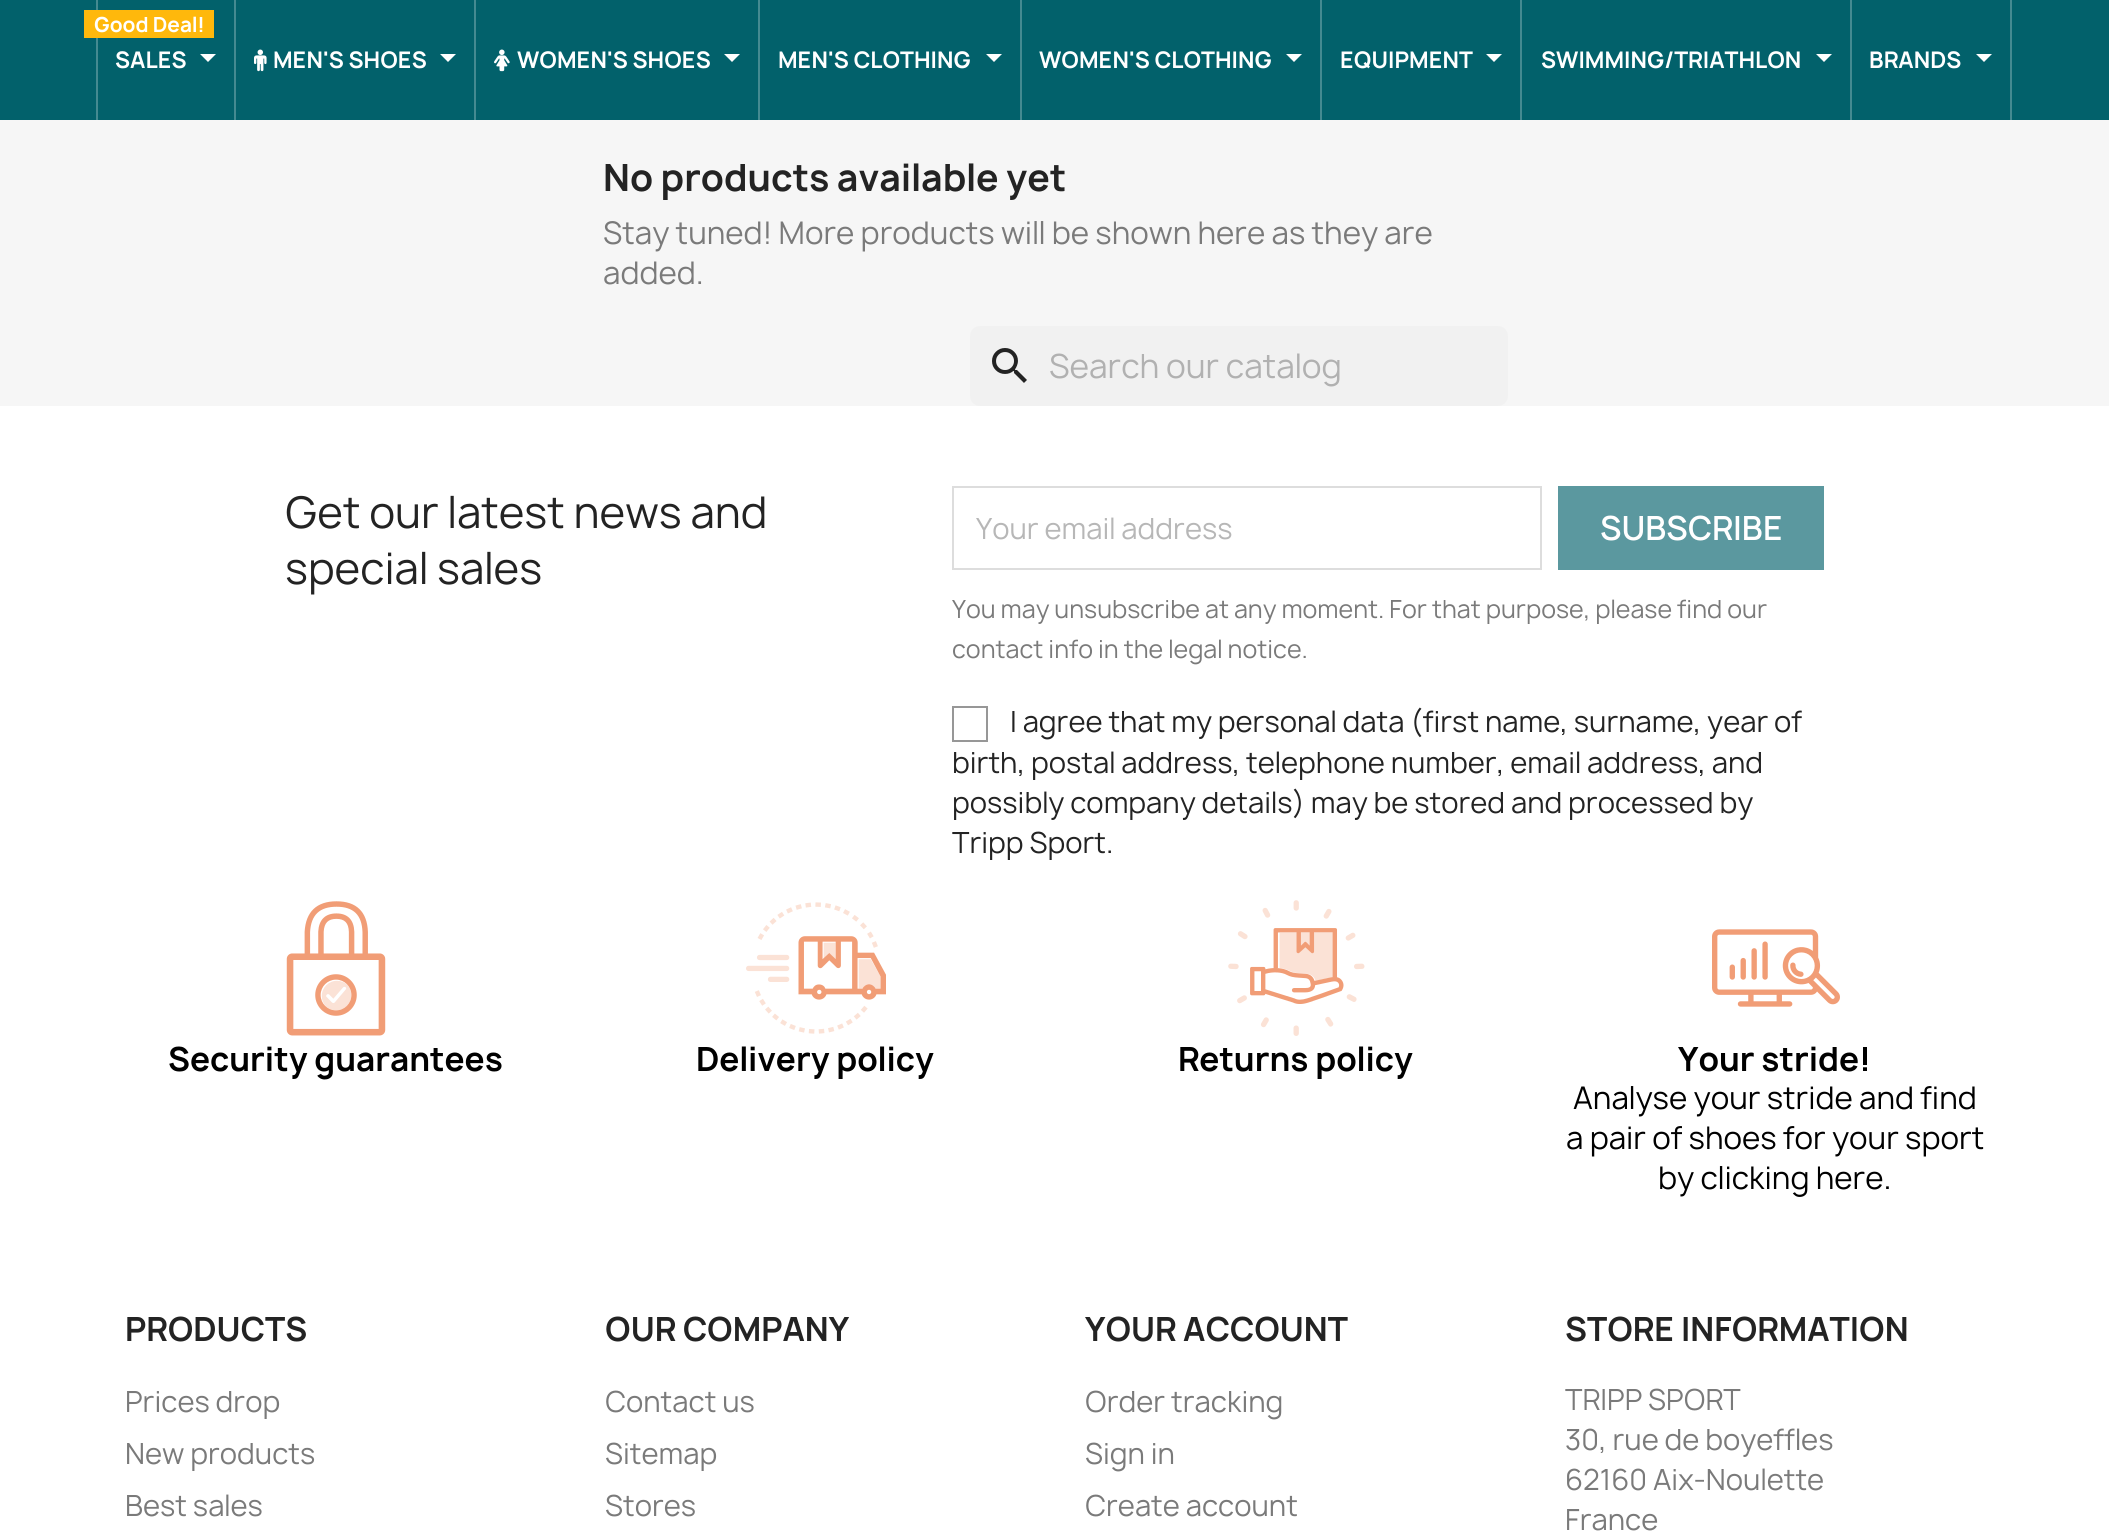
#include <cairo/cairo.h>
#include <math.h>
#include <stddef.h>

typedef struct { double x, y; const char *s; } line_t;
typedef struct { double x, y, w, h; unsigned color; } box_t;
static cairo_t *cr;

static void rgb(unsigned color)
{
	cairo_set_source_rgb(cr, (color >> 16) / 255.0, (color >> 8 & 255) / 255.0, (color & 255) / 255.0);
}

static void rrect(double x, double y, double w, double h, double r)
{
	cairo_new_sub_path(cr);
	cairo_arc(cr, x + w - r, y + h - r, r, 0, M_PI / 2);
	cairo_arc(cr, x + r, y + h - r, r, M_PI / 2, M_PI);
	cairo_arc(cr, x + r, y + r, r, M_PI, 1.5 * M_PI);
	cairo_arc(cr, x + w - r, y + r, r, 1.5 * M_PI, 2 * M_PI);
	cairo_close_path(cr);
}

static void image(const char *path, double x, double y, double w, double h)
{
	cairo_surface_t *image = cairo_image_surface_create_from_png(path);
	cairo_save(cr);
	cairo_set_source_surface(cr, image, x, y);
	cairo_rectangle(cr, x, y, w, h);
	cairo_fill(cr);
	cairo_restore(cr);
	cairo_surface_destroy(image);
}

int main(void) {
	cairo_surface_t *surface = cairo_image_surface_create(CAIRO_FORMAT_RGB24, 2109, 1531);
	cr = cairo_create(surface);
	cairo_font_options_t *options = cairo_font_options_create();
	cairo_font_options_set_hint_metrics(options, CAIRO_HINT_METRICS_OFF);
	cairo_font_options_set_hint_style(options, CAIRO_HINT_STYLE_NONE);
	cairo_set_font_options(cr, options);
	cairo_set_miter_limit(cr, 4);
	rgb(0xffffff);
	cairo_paint(cr);
	{
		static const box_t items[] = {
			{0, 0, 2109, 120, 0x02616b},
			{234, 0, 2, 120, 0x448a91},
			{96, 0, 2, 120, 0x448a91},
			{84, 10, 130, 28, 0xffb80c},
		};
		for (size_t i = 0; i < sizeof items / sizeof *items; i++) {
			rgb(items[i].color);
			cairo_rectangle(cr, items[i].x, items[i].y, items[i].w, items[i].h);
			cairo_fill(cr);
		}
	}
	rgb(0xffffff);
	cairo_new_path(cr);
	cairo_move_to(cr, 200, 54);
	cairo_line_to(cr, 216, 54);
	cairo_line_to(cr, 208, 62);
	cairo_close_path(cr);
	cairo_fill(cr);
	rgb(0x448a91);
	cairo_rectangle(cr, 474, 0, 2, 120);
	cairo_fill(cr);
	image("img/1.png", 254, 49, 13, 23);
	rgb(0xffffff);
	cairo_new_path(cr);
	cairo_move_to(cr, 440, 54);
	cairo_line_to(cr, 456, 54);
	cairo_line_to(cr, 448, 62);
	cairo_close_path(cr);
	cairo_fill(cr);
	rgb(0x448a91);
	cairo_rectangle(cr, 758, 0, 2, 120);
	cairo_fill(cr);
	image("img/2.png", 494, 49, 16, 23);
	rgb(0xffffff);
	cairo_new_path(cr);
	cairo_move_to(cr, 724, 54);
	cairo_line_to(cr, 740, 54);
	cairo_line_to(cr, 732, 62);
	cairo_close_path(cr);
	cairo_fill(cr);
	rgb(0x448a91);
	cairo_rectangle(cr, 1020, 0, 2, 120);
	cairo_fill(cr);
	rgb(0xffffff);
	cairo_new_path(cr);
	cairo_move_to(cr, 986, 54);
	cairo_line_to(cr, 1002, 54);
	cairo_line_to(cr, 994, 62);
	cairo_close_path(cr);
	cairo_fill(cr);
	rgb(0x448a91);
	cairo_rectangle(cr, 1320, 0, 2, 120);
	cairo_fill(cr);
	rgb(0xffffff);
	cairo_new_path(cr);
	cairo_move_to(cr, 1286, 54);
	cairo_line_to(cr, 1302, 54);
	cairo_line_to(cr, 1294, 62);
	cairo_close_path(cr);
	cairo_fill(cr);
	rgb(0x448a91);
	cairo_rectangle(cr, 1520, 0, 2, 120);
	cairo_fill(cr);
	rgb(0xffffff);
	cairo_new_path(cr);
	cairo_move_to(cr, 1486, 54);
	cairo_line_to(cr, 1502, 54);
	cairo_line_to(cr, 1494, 62);
	cairo_close_path(cr);
	cairo_fill(cr);
	rgb(0x448a91);
	cairo_rectangle(cr, 1850, 0, 2, 120);
	cairo_fill(cr);
	rgb(0xffffff);
	cairo_new_path(cr);
	cairo_move_to(cr, 1816, 54);
	cairo_line_to(cr, 1832, 54);
	cairo_line_to(cr, 1824, 62);
	cairo_close_path(cr);
	cairo_fill(cr);
	rgb(0x448a91);
	cairo_rectangle(cr, 2010, 0, 2, 120);
	cairo_fill(cr);
	rgb(0xffffff);
	cairo_new_path(cr);
	cairo_move_to(cr, 1976, 54);
	cairo_line_to(cr, 1992, 54);
	cairo_line_to(cr, 1984, 62);
	cairo_close_path(cr);
	cairo_fill(cr);
	rgb(0xf6f6f6);
	cairo_rectangle(cr, 0, 120, 2109, 286);
	cairo_fill(cr);
	rgb(0xf1f1f1);
	rrect(970, 326, 538, 80, 10);
	cairo_fill(cr);
	image("img/3.png", 992, 348, 35, 35);
	cairo_rectangle(cr, 953, 487, 588, 82);
	rgb(0xdddddd);
	cairo_stroke(cr);
	rgb(0x5b989f);
	cairo_rectangle(cr, 1558, 486, 266, 84);
	cairo_fill(cr);
	cairo_rectangle(cr, 953, 707, 34, 34);
	rgb(0x979797);
	cairo_stroke(cr);
	image("img/4.png", 286, 901, 100, 135);
	image("img/5.png", 746, 902, 140, 132);
	image("img/6.png", 1228, 900, 137, 136);
	image("img/7.png", 1712, 929, 128, 78);
	cairo_select_font_face(cr, "Manrope", CAIRO_FONT_SLANT_NORMAL, CAIRO_FONT_WEIGHT_BOLD);
	cairo_set_font_size(cr, 20);
	rgb(0xffffff);
	cairo_move_to(cr, 94, 32);
	cairo_show_text(cr, "Good Deal!");
	cairo_set_font_size(cr, 22);
	{
		static const line_t items[] = {
			{115, 68, "SALES"},
			{273, 68, "MEN'S SHOES"},
			{517, 68, "WOMEN'S SHOES"},
			{778, 68, "MEN'S CLOTHING"},
			{1039, 68, "WOMEN'S CLOTHING"},
			{1340, 68, "EQUIPMENT"},
			{1541, 68, "SWIMMING/TRIATHLON"},
			{1869, 68, "BRANDS"},
		};
		for (size_t i = 0; i < sizeof items / sizeof *items; i++) {
			cairo_move_to(cr, items[i].x, items[i].y);
			cairo_show_text(cr, items[i].s);
		}
	}
	cairo_set_font_size(cr, 36);
	rgb(0x232323);
	cairo_move_to(cr, 603, 191);
	cairo_show_text(cr, "No products available yet");
	cairo_select_font_face(cr, "Manrope", CAIRO_FONT_SLANT_NORMAL, CAIRO_FONT_WEIGHT_NORMAL);
	cairo_set_font_size(cr, 30);
	rgb(0x7a7a7a);
	cairo_move_to(cr, 603, 244);
	cairo_show_text(cr, "Stay tuned! More products will be shown here as they are");
	cairo_move_to(cr, 603, 284);
	cairo_show_text(cr, "added.");
	cairo_set_font_size(cr, 32);
	rgb(0xb1b1b1);
	cairo_move_to(cr, 1049, 378);
	cairo_show_text(cr, "Search our catalog");
	cairo_set_font_size(cr, 42);
	rgb(0x232323);
	cairo_move_to(cr, 285, 528);
	cairo_show_text(cr, "Get our latest news and");
	cairo_move_to(cr, 285, 584);
	cairo_show_text(cr, "special sales");
	cairo_set_font_size(cr, 28);
	rgb(0xb7b7b7);
	cairo_move_to(cr, 976, 539);
	cairo_show_text(cr, "Your email address");
	cairo_select_font_face(cr, "Manrope SemiBold", CAIRO_FONT_SLANT_NORMAL, CAIRO_FONT_WEIGHT_NORMAL);
	cairo_set_font_size(cr, 32);
	rgb(0xffffff);
	cairo_move_to(cr, 1600, 540);
	cairo_show_text(cr, "SUBSCRIBE");
	cairo_select_font_face(cr, "Manrope", CAIRO_FONT_SLANT_NORMAL, CAIRO_FONT_WEIGHT_NORMAL);
	cairo_set_font_size(cr, 24);
	rgb(0x7a7a7a);
	cairo_move_to(cr, 952, 618);
	cairo_show_text(cr, "You may unsubscribe at any moment. For that purpose, please find our");
	cairo_move_to(cr, 952, 658);
	cairo_show_text(cr, "contact info in the legal notice.");
	cairo_set_font_size(cr, 28);
	rgb(0x232323);
	{
		static const line_t items[] = {
			{1010, 732, "I agree that my personal data (first name, surname, year of"},
			{952, 773, "birth, postal address, telephone number, email address, and"},
			{952, 813, "possibly company details) may be stored and processed by"},
			{952, 853, "Tripp Sport."},
		};
		for (size_t i = 0; i < sizeof items / sizeof *items; i++) {
			cairo_move_to(cr, items[i].x, items[i].y);
			cairo_show_text(cr, items[i].s);
		}
	}
	cairo_select_font_face(cr, "Manrope", CAIRO_FONT_SLANT_NORMAL, CAIRO_FONT_WEIGHT_BOLD);
	cairo_set_font_size(cr, 32);
	rgb(0x000000);
	{
		static const line_t items[] = {
			{168, 1071, "Security guarantees"},
			{696, 1071, "Delivery policy"},
			{1178, 1071, "Returns policy"},
			{1678, 1071, "Your stride!"},
		};
		for (size_t i = 0; i < sizeof items / sizeof *items; i++) {
			cairo_move_to(cr, items[i].x, items[i].y);
			cairo_show_text(cr, items[i].s);
		}
	}
	cairo_select_font_face(cr, "Manrope", CAIRO_FONT_SLANT_NORMAL, CAIRO_FONT_WEIGHT_NORMAL);
	cairo_set_font_size(cr, 30);
	{
		static const line_t items[] = {
			{1573, 1109, "Analyse your stride and find"},
			{1566, 1149, "a pair of shoes for your sport"},
			{1658, 1189, "by clicking here."},
		};
		for (size_t i = 0; i < sizeof items / sizeof *items; i++) {
			cairo_move_to(cr, items[i].x, items[i].y);
			cairo_show_text(cr, items[i].s);
		}
	}
	cairo_select_font_face(cr, "Manrope", CAIRO_FONT_SLANT_NORMAL, CAIRO_FONT_WEIGHT_BOLD);
	cairo_set_font_size(cr, 32);
	rgb(0x232323);
	cairo_move_to(cr, 125, 1341);
	cairo_show_text(cr, "PRODUCTS");
	cairo_select_font_face(cr, "Manrope", CAIRO_FONT_SLANT_NORMAL, CAIRO_FONT_WEIGHT_NORMAL);
	cairo_set_font_size(cr, 28);
	rgb(0x7a7a7a);
	{
		static const line_t items[] = {
			{125, 1412, "Prices drop"},
			{125, 1464, "New products"},
			{125, 1516, "Best sales"},
		};
		for (size_t i = 0; i < sizeof items / sizeof *items; i++) {
			cairo_move_to(cr, items[i].x, items[i].y);
			cairo_show_text(cr, items[i].s);
		}
	}
	cairo_select_font_face(cr, "Manrope", CAIRO_FONT_SLANT_NORMAL, CAIRO_FONT_WEIGHT_BOLD);
	cairo_set_font_size(cr, 32);
	rgb(0x232323);
	cairo_move_to(cr, 605, 1341);
	cairo_show_text(cr, "OUR COMPANY");
	cairo_select_font_face(cr, "Manrope", CAIRO_FONT_SLANT_NORMAL, CAIRO_FONT_WEIGHT_NORMAL);
	cairo_set_font_size(cr, 28);
	rgb(0x7a7a7a);
	{
		static const line_t items[] = {
			{605, 1412, "Contact us"},
			{605, 1464, "Sitemap"},
			{605, 1516, "Stores"},
		};
		for (size_t i = 0; i < sizeof items / sizeof *items; i++) {
			cairo_move_to(cr, items[i].x, items[i].y);
			cairo_show_text(cr, items[i].s);
		}
	}
	cairo_select_font_face(cr, "Manrope", CAIRO_FONT_SLANT_NORMAL, CAIRO_FONT_WEIGHT_BOLD);
	cairo_set_font_size(cr, 32);
	rgb(0x232323);
	cairo_move_to(cr, 1085, 1341);
	cairo_show_text(cr, "YOUR ACCOUNT");
	cairo_select_font_face(cr, "Manrope", CAIRO_FONT_SLANT_NORMAL, CAIRO_FONT_WEIGHT_NORMAL);
	cairo_set_font_size(cr, 28);
	rgb(0x7a7a7a);
	{
		static const line_t items[] = {
			{1085, 1412, "Order tracking"},
			{1085, 1464, "Sign in"},
			{1085, 1516, "Create account"},
		};
		for (size_t i = 0; i < sizeof items / sizeof *items; i++) {
			cairo_move_to(cr, items[i].x, items[i].y);
			cairo_show_text(cr, items[i].s);
		}
	}
	cairo_select_font_face(cr, "Manrope", CAIRO_FONT_SLANT_NORMAL, CAIRO_FONT_WEIGHT_BOLD);
	cairo_set_font_size(cr, 32);
	rgb(0x232323);
	cairo_move_to(cr, 1565, 1341);
	cairo_show_text(cr, "STORE INFORMATION");
	cairo_select_font_face(cr, "Manrope", CAIRO_FONT_SLANT_NORMAL, CAIRO_FONT_WEIGHT_NORMAL);
	cairo_set_font_size(cr, 28);
	rgb(0x7a7a7a);
	{
		static const line_t items[] = {
			{1565, 1410, "TRIPP SPORT"},
			{1565, 1450, "30, rue de boyeffles"},
			{1565, 1490, "62160 Aix-Noulette"},
			{1565, 1530, "France"},
		};
		for (size_t i = 0; i < sizeof items / sizeof *items; i++) {
			cairo_move_to(cr, items[i].x, items[i].y);
			cairo_show_text(cr, items[i].s);
		}
	}
	cairo_surface_write_to_png(surface, "page.png");
	cairo_font_options_destroy(options);
	cairo_destroy(cr);
	cairo_surface_destroy(surface);
	return 0;
}
